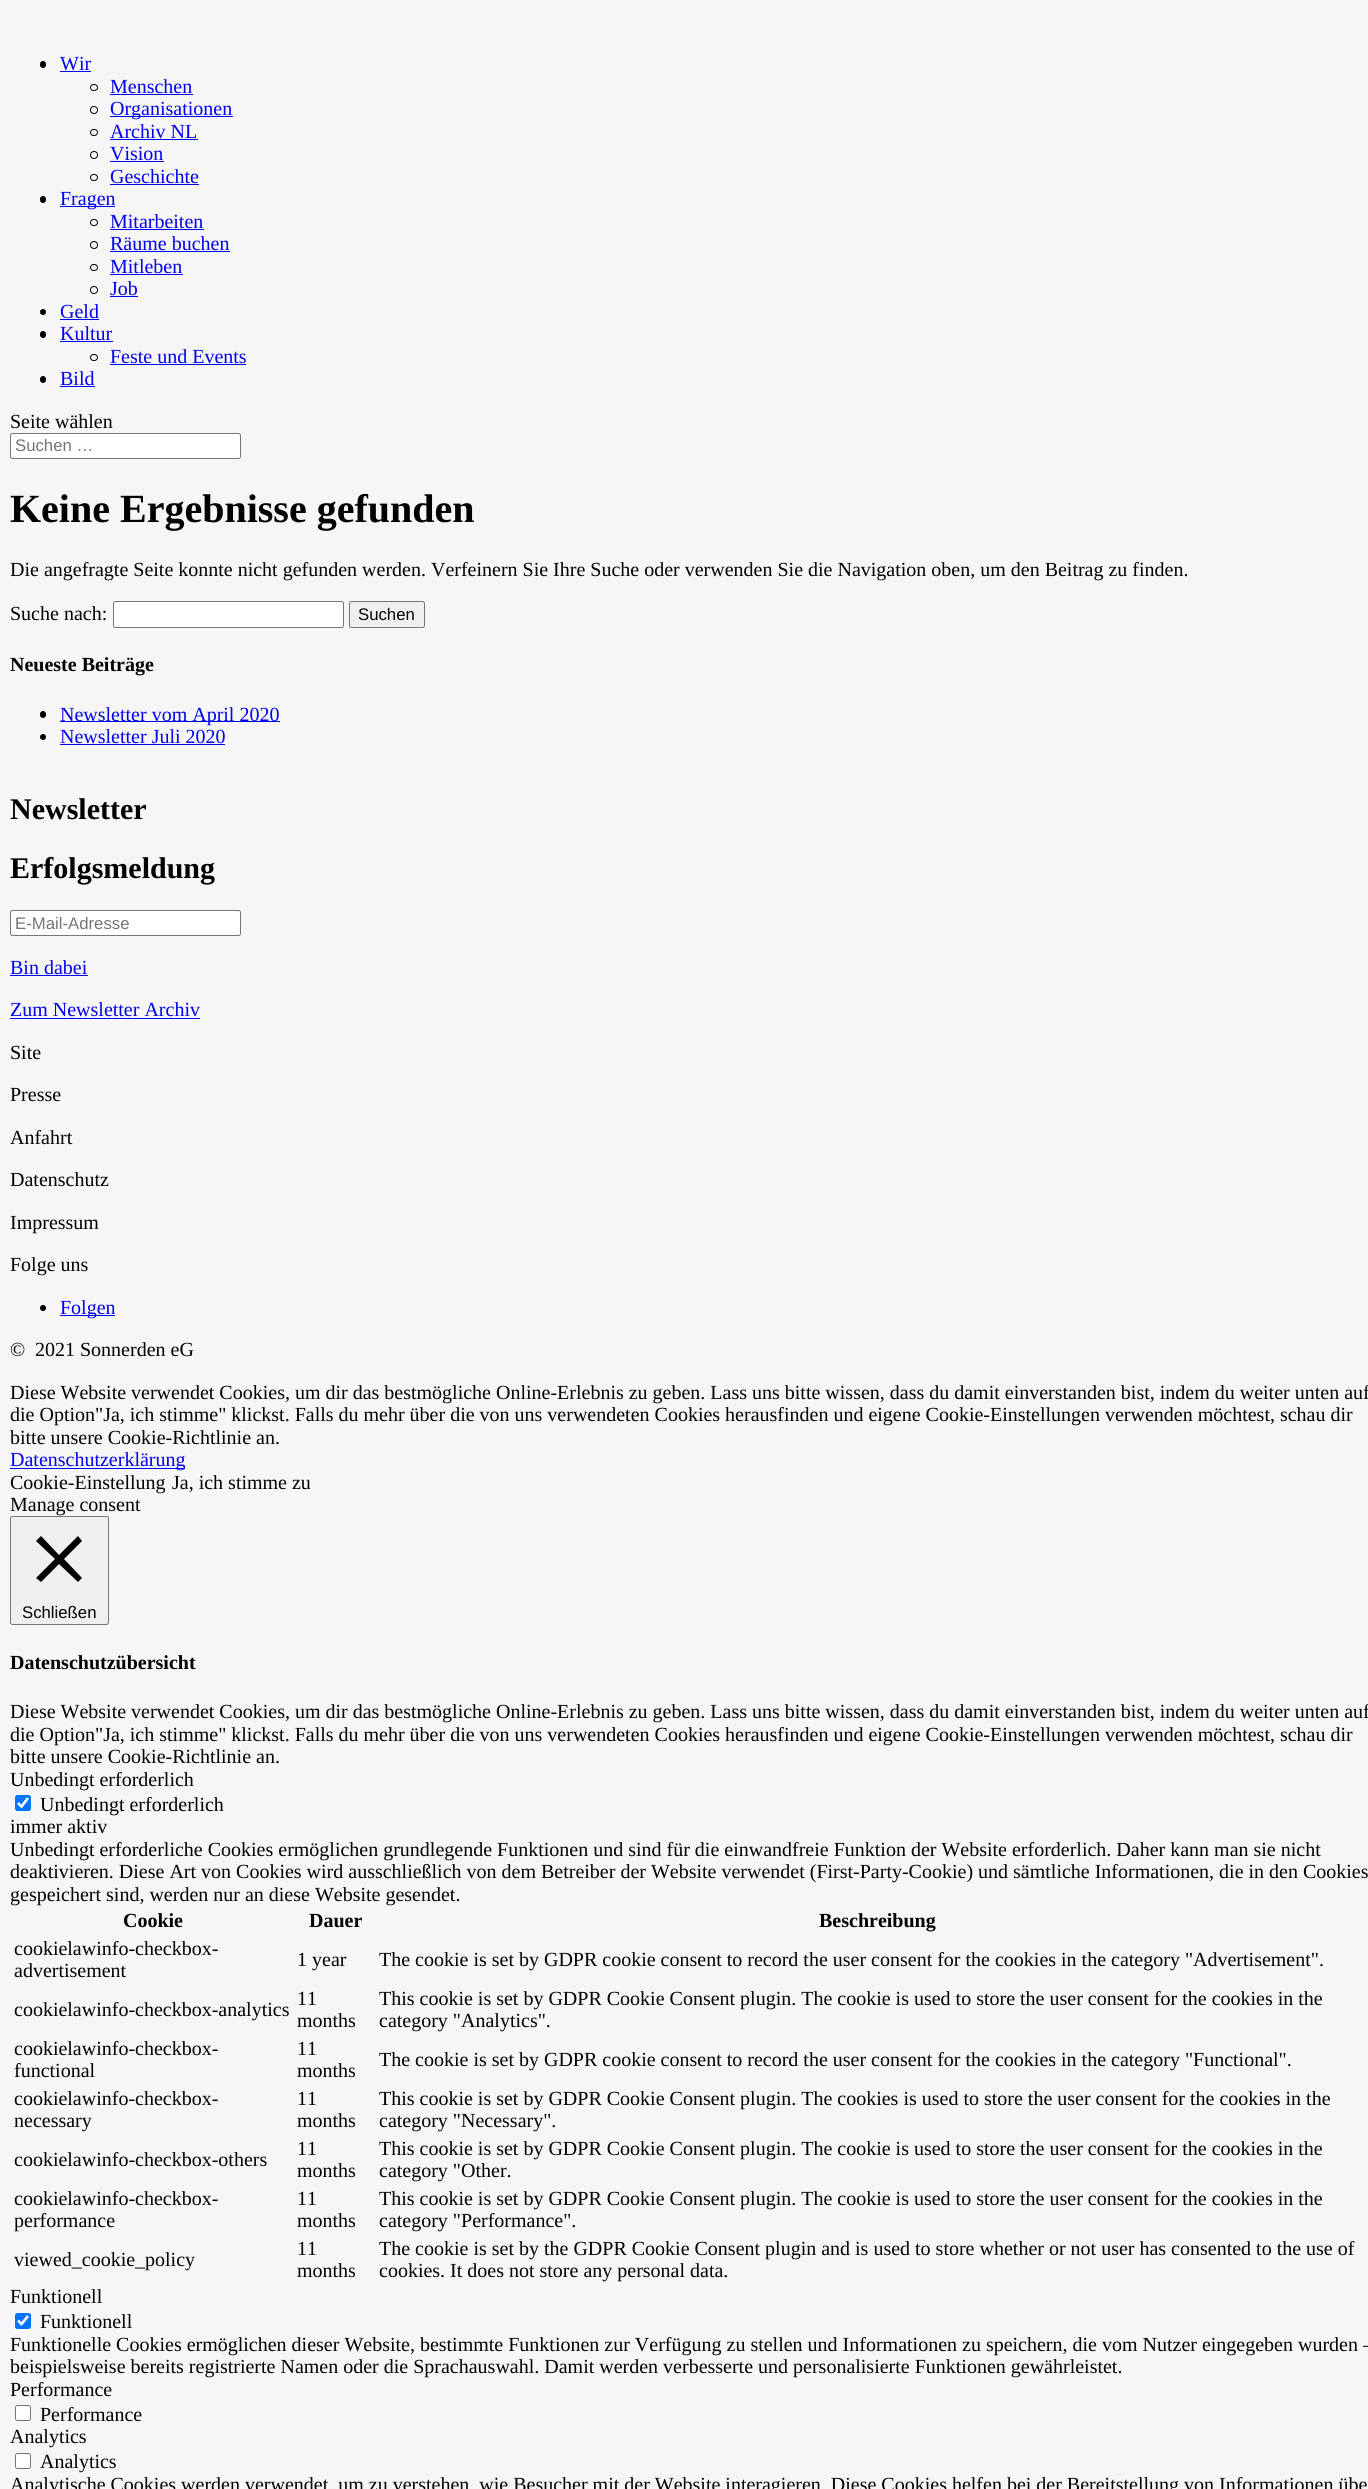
#include <cairo/cairo.h>
#include <math.h>
#include <stddef.h>

typedef struct { double x, y; const char *s; } line_t;
static cairo_t *cr;

static void rgb(unsigned color)
{
	cairo_set_source_rgb(cr, (color >> 16) / 255.0, (color >> 8 & 255) / 255.0, (color & 255) / 255.0);
}

static void rrect(double x, double y, double w, double h, double r)
{
	cairo_new_sub_path(cr);
	cairo_arc(cr, x + w - r, y + h - r, r, 0, M_PI / 2);
	cairo_arc(cr, x + r, y + h - r, r, M_PI / 2, M_PI);
	cairo_arc(cr, x + r, y + r, r, M_PI, 1.5 * M_PI);
	cairo_arc(cr, x + w - r, y + r, r, 1.5 * M_PI, 2 * M_PI);
	cairo_close_path(cr);
}

int main(void) {
	cairo_surface_t *surface = cairo_image_surface_create(CAIRO_FORMAT_RGB24, 1368, 2489);
	cr = cairo_create(surface);
	cairo_font_options_t *options = cairo_font_options_create();
	cairo_font_options_set_hint_metrics(options, CAIRO_HINT_METRICS_OFF);
	cairo_font_options_set_hint_style(options, CAIRO_HINT_STYLE_NONE);
	cairo_set_font_options(cr, options);
	cairo_set_miter_limit(cr, 4);
	rgb(0xf6f6f6);
	cairo_paint(cr);
	rgb(0x000000);
	rrect(40, 61, 6, 7, 3);
	cairo_fill(cr);
	rgb(0x0000ee);
	cairo_rectangle(cr, 60, 71, 31, 1);
	cairo_fill(cr);
	rrect(90.5, 84.5, 7, 6, 3);
	rgb(0x000000);
	cairo_set_line_width(cr, 1);
	cairo_stroke(cr);
	rgb(0x0000ee);
	cairo_rectangle(cr, 110, 94, 83, 1);
	cairo_fill(cr);
	cairo_arc(cr, 94, 110, 3.5, 0, 2 * M_PI);
	rgb(0x000000);
	cairo_stroke(cr);
	rgb(0x0000ee);
	cairo_rectangle(cr, 110, 116, 123, 1);
	cairo_fill(cr);
	rrect(90.5, 129.5, 7, 6, 3);
	rgb(0x000000);
	cairo_stroke(cr);
	rgb(0x0000ee);
	cairo_rectangle(cr, 110, 139, 88, 1);
	cairo_fill(cr);
	cairo_arc(cr, 94, 155, 3.5, 0, 2 * M_PI);
	rgb(0x000000);
	cairo_stroke(cr);
	rgb(0x0000ee);
	cairo_rectangle(cr, 110, 161, 54, 1);
	cairo_fill(cr);
	rrect(90.5, 174.5, 7, 6, 3);
	rgb(0x000000);
	cairo_stroke(cr);
	rgb(0x0000ee);
	cairo_rectangle(cr, 110, 184, 89, 1);
	cairo_fill(cr);
	rgb(0x000000);
	rrect(40, 196, 6, 7, 3);
	cairo_fill(cr);
	rgb(0x0000ee);
	cairo_rectangle(cr, 60, 206, 55, 1);
	cairo_fill(cr);
	rrect(90.5, 219.5, 7, 6, 3);
	rgb(0x000000);
	cairo_stroke(cr);
	rgb(0x0000ee);
	cairo_rectangle(cr, 110, 229, 94, 1);
	cairo_fill(cr);
	cairo_arc(cr, 94, 245, 3.5, 0, 2 * M_PI);
	rgb(0x000000);
	cairo_stroke(cr);
	rgb(0x0000ee);
	cairo_rectangle(cr, 110, 251, 120, 1);
	cairo_fill(cr);
	rrect(90.5, 264.5, 7, 6, 3);
	rgb(0x000000);
	cairo_stroke(cr);
	rgb(0x0000ee);
	cairo_rectangle(cr, 110, 274, 73, 1);
	cairo_fill(cr);
	cairo_arc(cr, 94, 290, 3.5, 0, 2 * M_PI);
	rgb(0x000000);
	cairo_stroke(cr);
	rgb(0x0000ee);
	cairo_rectangle(cr, 110, 296, 28, 1);
	cairo_fill(cr);
	rgb(0x000000);
	cairo_arc(cr, 43, 312, 3, 0, 2 * M_PI);
	cairo_fill(cr);
	rgb(0x0000ee);
	cairo_rectangle(cr, 60, 319, 39, 1);
	cairo_fill(cr);
	rgb(0x000000);
	rrect(40, 331, 6, 7, 3);
	cairo_fill(cr);
	rgb(0x0000ee);
	cairo_rectangle(cr, 60, 341, 53, 1);
	cairo_fill(cr);
	rrect(90.5, 354.5, 7, 6, 3);
	rgb(0x000000);
	cairo_stroke(cr);
	rgb(0x0000ee);
	cairo_rectangle(cr, 110, 364, 136, 1);
	cairo_fill(cr);
	rgb(0x000000);
	rrect(40, 376, 6, 7, 3);
	cairo_fill(cr);
	rgb(0x0000ee);
	cairo_rectangle(cr, 60, 386, 35, 1);
	cairo_fill(cr);
	rgb(0xffffff);
	rrect(10.5, 433.5, 230, 25, 2);
	cairo_fill_preserve(cr);
	rgb(0x767676);
	cairo_stroke(cr);
	rgb(0xffffff);
	rrect(113.5, 601.5, 230, 26, 2);
	cairo_fill_preserve(cr);
	rgb(0x767676);
	cairo_stroke(cr);
	rgb(0xefefef);
	rrect(349.5, 601.5, 75, 26, 2);
	cairo_fill_preserve(cr);
	rgb(0x767676);
	cairo_stroke(cr);
	rgb(0x000000);
	rrect(40, 711, 6, 7, 3);
	cairo_fill(cr);
	rgb(0x0000ee);
	cairo_rectangle(cr, 60, 721, 220, 1);
	cairo_fill(cr);
	rgb(0x000000);
	cairo_arc(cr, 43, 737, 3, 0, 2 * M_PI);
	cairo_fill(cr);
	rgb(0x0000ee);
	cairo_rectangle(cr, 60, 744, 165, 1);
	cairo_fill(cr);
	rgb(0xffffff);
	rrect(10.5, 910.5, 230, 25, 2);
	cairo_fill_preserve(cr);
	rgb(0x767676);
	cairo_stroke(cr);
	rgb(0x0000ee);
	cairo_rectangle(cr, 10, 975, 78, 1);
	cairo_fill(cr);
	cairo_rectangle(cr, 10, 1018, 190, 1);
	cairo_fill(cr);
	rgb(0x000000);
	cairo_arc(cr, 43, 1308, 3, 0, 2 * M_PI);
	cairo_fill(cr);
	rgb(0x0000ee);
	cairo_rectangle(cr, 60, 1315, 55, 1);
	cairo_fill(cr);
	cairo_rectangle(cr, 10, 1468, 175, 1);
	cairo_fill(cr);
	rgb(0xefefef);
	rrect(10.5, 1516.5, 98, 108, 2);
	cairo_fill_preserve(cr);
	rgb(0x767676);
	cairo_stroke(cr);
	rgb(0x000000);
	cairo_new_path(cr);
	cairo_move_to(cr, 82, 1541);
	cairo_line_to(cr, 78, 1536);
	cairo_line_to(cr, 59, 1555);
	cairo_line_to(cr, 41, 1536);
	cairo_line_to(cr, 36, 1541);
	cairo_line_to(cr, 55, 1559);
	cairo_line_to(cr, 36, 1578);
	cairo_line_to(cr, 41, 1582);
	cairo_line_to(cr, 59, 1564);
	cairo_line_to(cr, 78, 1582);
	cairo_line_to(cr, 82, 1578);
	cairo_line_to(cr, 64, 1559);
	cairo_close_path(cr);
	cairo_fill(cr);
	rgb(0x0075ff);
	rrect(15, 1795, 16, 16, 2.5);
	cairo_fill(cr);
	cairo_new_path(cr);
	cairo_move_to(cr, 18, 1803);
	cairo_line_to(cr, 21.5, 1806.5);
	cairo_line_to(cr, 28, 1798);
	rgb(0xffffff);
	cairo_set_line_width(cr, 2.6);
	cairo_stroke(cr);
	rgb(0x0075ff);
	rrect(15, 2313, 16, 16, 2.5);
	cairo_fill(cr);
	cairo_new_path(cr);
	cairo_move_to(cr, 18, 2320.5);
	cairo_line_to(cr, 21.5, 2324);
	cairo_line_to(cr, 28, 2316);
	rgb(0xffffff);
	cairo_stroke(cr);
	rrect(15.5, 2405.5, 15, 15, 2);
	cairo_fill_preserve(cr);
	rgb(0x767676);
	cairo_set_line_width(cr, 1);
	cairo_stroke(cr);
	rgb(0xffffff);
	rrect(15.5, 2453.5, 15, 15, 2);
	cairo_fill_preserve(cr);
	rgb(0x767676);
	cairo_stroke(cr);
	cairo_select_font_face(cr, "Liberation Serif", CAIRO_FONT_SLANT_NORMAL, CAIRO_FONT_WEIGHT_NORMAL);
	cairo_set_font_size(cr, 20);
	rgb(0x0000ee);
	{
		static const line_t items[] = {
			{60, 70, "Wir"},
			{110, 93, "Menschen"},
			{110, 115, "Organisationen"},
			{110, 138, "Archiv NL"},
			{110, 160, "Vision"},
			{110, 183, "Geschichte"},
			{60, 205, "Fragen"},
			{110, 228, "Mitarbeiten"},
			{110, 250, "Räume buchen"},
			{110, 273, "Mitleben"},
			{110, 295, "Job"},
			{60, 318, "Geld"},
			{60, 340, "Kultur"},
			{110, 363, "Feste und Events"},
			{60, 385, "Bild"},
		};
		for (size_t i = 0; i < sizeof items / sizeof *items; i++) {
			cairo_move_to(cr, items[i].x, items[i].y);
			cairo_show_text(cr, items[i].s);
		}
	}
	rgb(0x000000);
	cairo_move_to(cr, 10, 428);
	cairo_show_text(cr, "Seite wählen");
	cairo_select_font_face(cr, "Liberation Sans", CAIRO_FONT_SLANT_NORMAL, CAIRO_FONT_WEIGHT_NORMAL);
	cairo_set_font_size(cr, 16.75);
	rgb(0x757575);
	cairo_move_to(cr, 15, 451);
	cairo_show_text(cr, "Suchen …");
	cairo_select_font_face(cr, "Liberation Serif", CAIRO_FONT_SLANT_NORMAL, CAIRO_FONT_WEIGHT_BOLD);
	cairo_set_font_size(cr, 40);
	rgb(0x000000);
	cairo_move_to(cr, 10, 522);
	cairo_show_text(cr, "Keine Ergebnisse gefunden");
	cairo_select_font_face(cr, "Liberation Serif", CAIRO_FONT_SLANT_NORMAL, CAIRO_FONT_WEIGHT_NORMAL);
	cairo_set_font_size(cr, 20);
	cairo_move_to(cr, 10, 576);
	cairo_show_text(cr, "Die angefragte Seite konnte nicht gefunden werden. Verfeinern Sie Ihre Suche oder verwenden Sie die Navigation oben, um den Beitrag zu finden.");
	cairo_move_to(cr, 10, 620);
	cairo_show_text(cr, "Suche nach:");
	cairo_select_font_face(cr, "Liberation Sans", CAIRO_FONT_SLANT_NORMAL, CAIRO_FONT_WEIGHT_NORMAL);
	cairo_set_font_size(cr, 16.75);
	cairo_move_to(cr, 358, 620);
	cairo_show_text(cr, "Suchen");
	cairo_select_font_face(cr, "Liberation Serif", CAIRO_FONT_SLANT_NORMAL, CAIRO_FONT_WEIGHT_BOLD);
	cairo_set_font_size(cr, 20);
	cairo_move_to(cr, 10, 671);
	cairo_show_text(cr, "Neueste Beiträge");
	cairo_select_font_face(cr, "Liberation Serif", CAIRO_FONT_SLANT_NORMAL, CAIRO_FONT_WEIGHT_NORMAL);
	rgb(0x0000ee);
	cairo_move_to(cr, 60, 721);
	cairo_show_text(cr, "Newsletter vom April 2020");
	cairo_move_to(cr, 60, 743);
	cairo_show_text(cr, "Newsletter Juli 2020");
	cairo_select_font_face(cr, "Liberation Serif", CAIRO_FONT_SLANT_NORMAL, CAIRO_FONT_WEIGHT_BOLD);
	cairo_set_font_size(cr, 30);
	rgb(0x000000);
	cairo_move_to(cr, 10, 819);
	cairo_show_text(cr, "Newsletter");
	cairo_move_to(cr, 10, 878);
	cairo_show_text(cr, "Erfolgsmeldung");
	cairo_select_font_face(cr, "Liberation Sans", CAIRO_FONT_SLANT_NORMAL, CAIRO_FONT_WEIGHT_NORMAL);
	cairo_set_font_size(cr, 16.75);
	rgb(0x757575);
	cairo_move_to(cr, 15, 929);
	cairo_show_text(cr, "E-Mail-Adresse");
	cairo_select_font_face(cr, "Liberation Serif", CAIRO_FONT_SLANT_NORMAL, CAIRO_FONT_WEIGHT_NORMAL);
	cairo_set_font_size(cr, 20);
	rgb(0x0000ee);
	cairo_move_to(cr, 10, 974);
	cairo_show_text(cr, "Bin dabei");
	cairo_move_to(cr, 10, 1016);
	cairo_show_text(cr, "Zum Newsletter Archiv");
	rgb(0x000000);
	{
		static const line_t items[] = {
			{10, 1059, "Site"},
			{10, 1101, "Presse"},
			{10, 1144, "Anfahrt"},
			{10, 1186, "Datenschutz"},
			{10, 1229, "Impressum"},
			{10, 1271, "Folge uns"},
		};
		for (size_t i = 0; i < sizeof items / sizeof *items; i++) {
			cairo_move_to(cr, items[i].x, items[i].y);
			cairo_show_text(cr, items[i].s);
		}
	}
	rgb(0x0000ee);
	cairo_move_to(cr, 60, 1314);
	cairo_show_text(cr, "Folgen");
	rgb(0x000000);
	{
		static const line_t items[] = {
			{10, 1356, "©"},
			{35, 1356, "2021 Sonnerden eG"},
			{10, 1399, "Diese Website verwendet Cookies, um dir das bestmögliche Online-Erlebnis zu geben. Lass uns bitte wissen, dass du damit einverstanden bist, indem du weiter unten auf"},
			{10, 1421, "die Option\"Ja, ich stimme\" klickst. Falls du mehr über die von uns verwendeten Cookies herausfinden und eigene Cookie-Einstellungen verwenden möchtest, schau dir"},
			{10, 1444, "bitte unsere Cookie-Richtlinie an."},
		};
		for (size_t i = 0; i < sizeof items / sizeof *items; i++) {
			cairo_move_to(cr, items[i].x, items[i].y);
			cairo_show_text(cr, items[i].s);
		}
	}
	rgb(0x0000ee);
	cairo_move_to(cr, 10, 1466);
	cairo_show_text(cr, "Datenschutzerklärung");
	rgb(0x000000);
	{
		static const line_t items[] = {
			{10, 1489, "Cookie-Einstellung"},
			{172, 1489, "Ja, ich stimme zu"},
			{10, 1511, "Manage consent"},
		};
		for (size_t i = 0; i < sizeof items / sizeof *items; i++) {
			cairo_move_to(cr, items[i].x, items[i].y);
			cairo_show_text(cr, items[i].s);
		}
	}
	cairo_select_font_face(cr, "Liberation Sans", CAIRO_FONT_SLANT_NORMAL, CAIRO_FONT_WEIGHT_NORMAL);
	cairo_set_font_size(cr, 16.75);
	cairo_move_to(cr, 22, 1618);
	cairo_show_text(cr, "Schließen");
	cairo_select_font_face(cr, "Liberation Serif", CAIRO_FONT_SLANT_NORMAL, CAIRO_FONT_WEIGHT_BOLD);
	cairo_set_font_size(cr, 20);
	cairo_move_to(cr, 10, 1669);
	cairo_show_text(cr, "Datenschutzübersicht");
	cairo_select_font_face(cr, "Liberation Serif", CAIRO_FONT_SLANT_NORMAL, CAIRO_FONT_WEIGHT_NORMAL);
	{
		static const line_t items[] = {
			{10, 1718, "Diese Website verwendet Cookies, um dir das bestmögliche Online-Erlebnis zu geben. Lass uns bitte wissen, dass du damit einverstanden bist, indem du weiter unten auf"},
			{10, 1741, "die Option\"Ja, ich stimme\" klickst. Falls du mehr über die von uns verwendeten Cookies herausfinden und eigene Cookie-Einstellungen verwenden möchtest, schau dir"},
			{10, 1763, "bitte unsere Cookie-Richtlinie an."},
			{10, 1786, "Unbedingt erforderlich"},
			{40, 1811, "Unbedingt erforderlich"},
			{10, 1833, "immer aktiv"},
			{10, 1856, "Unbedingt erforderliche Cookies ermöglichen grundlegende Funktionen und sind für die einwandfreie Funktion der Website erforderlich. Daher kann man sie nicht"},
			{10, 1878, "deaktivieren. Diese Art von Cookies wird ausschließlich von dem Betreiber der Website verwendet (First-Party-Cookie) und sämtliche Informationen, die in den Cookies"},
			{10, 1901, "gespeichert sind, werden nur an diese Website gesendet."},
		};
		for (size_t i = 0; i < sizeof items / sizeof *items; i++) {
			cairo_move_to(cr, items[i].x, items[i].y);
			cairo_show_text(cr, items[i].s);
		}
	}
	cairo_select_font_face(cr, "Liberation Serif", CAIRO_FONT_SLANT_NORMAL, CAIRO_FONT_WEIGHT_BOLD);
	{
		static const line_t items[] = {
			{123, 1927, "Cookie"},
			{309, 1927, "Dauer"},
			{819, 1927, "Beschreibung"},
		};
		for (size_t i = 0; i < sizeof items / sizeof *items; i++) {
			cairo_move_to(cr, items[i].x, items[i].y);
			cairo_show_text(cr, items[i].s);
		}
	}
	cairo_select_font_face(cr, "Liberation Serif", CAIRO_FONT_SLANT_NORMAL, CAIRO_FONT_WEIGHT_NORMAL);
	{
		static const line_t items[] = {
			{14, 1955, "cookielawinfo-checkbox-"},
			{14, 1977, "advertisement"},
			{297, 1966, "1 year"},
			{379, 1966, "The cookie is set by GDPR cookie consent to record the user consent for the cookies in the category \"Advertisement\"."},
			{14, 2016, "cookielawinfo-checkbox-analytics"},
			{297, 2005, "11"},
			{297, 2027, "months"},
			{379, 2005, "This cookie is set by GDPR Cookie Consent plugin. The cookie is used to store the user consent for the cookies in the"},
			{379, 2027, "category \"Analytics\"."},
			{14, 2055, "cookielawinfo-checkbox-"},
			{14, 2077, "functional"},
			{297, 2055, "11"},
			{297, 2077, "months"},
			{379, 2066, "The cookie is set by GDPR cookie consent to record the user consent for the cookies in the category \"Functional\"."},
			{14, 2105, "cookielawinfo-checkbox-"},
			{14, 2127, "necessary"},
			{297, 2105, "11"},
			{297, 2127, "months"},
			{379, 2105, "This cookie is set by GDPR Cookie Consent plugin. The cookies is used to store the user consent for the cookies in the"},
			{379, 2127, "category \"Necessary\"."},
			{14, 2166, "cookielawinfo-checkbox-others"},
			{297, 2155, "11"},
			{297, 2177, "months"},
			{379, 2155, "This cookie is set by GDPR Cookie Consent plugin. The cookie is used to store the user consent for the cookies in the"},
			{379, 2177, "category \"Other."},
			{14, 2205, "cookielawinfo-checkbox-"},
			{14, 2227, "performance"},
			{297, 2205, "11"},
			{297, 2227, "months"},
			{379, 2205, "This cookie is set by GDPR Cookie Consent plugin. The cookie is used to store the user consent for the cookies in the"},
			{379, 2227, "category \"Performance\"."},
			{14, 2266, "viewed_cookie_policy"},
			{297, 2255, "11"},
			{297, 2277, "months"},
			{379, 2255, "The cookie is set by the GDPR Cookie Consent plugin and is used to store whether or not user has consented to the use of"},
			{379, 2277, "cookies. It does not store any personal data."},
			{10, 2303, "Funktionell"},
			{40, 2328, "Funktionell"},
			{10, 2351, "Funktionelle Cookies ermöglichen dieser Website, bestimmte Funktionen zur Verfügung zu stellen und Informationen zu speichern, die vom Nutzer eingegeben wurden –"},
			{10, 2373, "beispielsweise bereits registrierte Namen oder die Sprachauswahl. Damit werden verbesserte und personalisierte Funktionen gewährleistet."},
			{10, 2396, "Performance"},
			{40, 2421, "Performance"},
			{10, 2443, "Analytics"},
			{40, 2468, "Analytics"},
			{10, 2491, "Analytische Cookies werden verwendet, um zu verstehen, wie Besucher mit der Website interagieren. Diese Cookies helfen bei der Bereitstellung von Informationen übe"},
		};
		for (size_t i = 0; i < sizeof items / sizeof *items; i++) {
			cairo_move_to(cr, items[i].x, items[i].y);
			cairo_show_text(cr, items[i].s);
		}
	}
	cairo_surface_write_to_png(surface, "page.png");
	cairo_font_options_destroy(options);
	cairo_destroy(cr);
	cairo_surface_destroy(surface);
	return 0;
}
